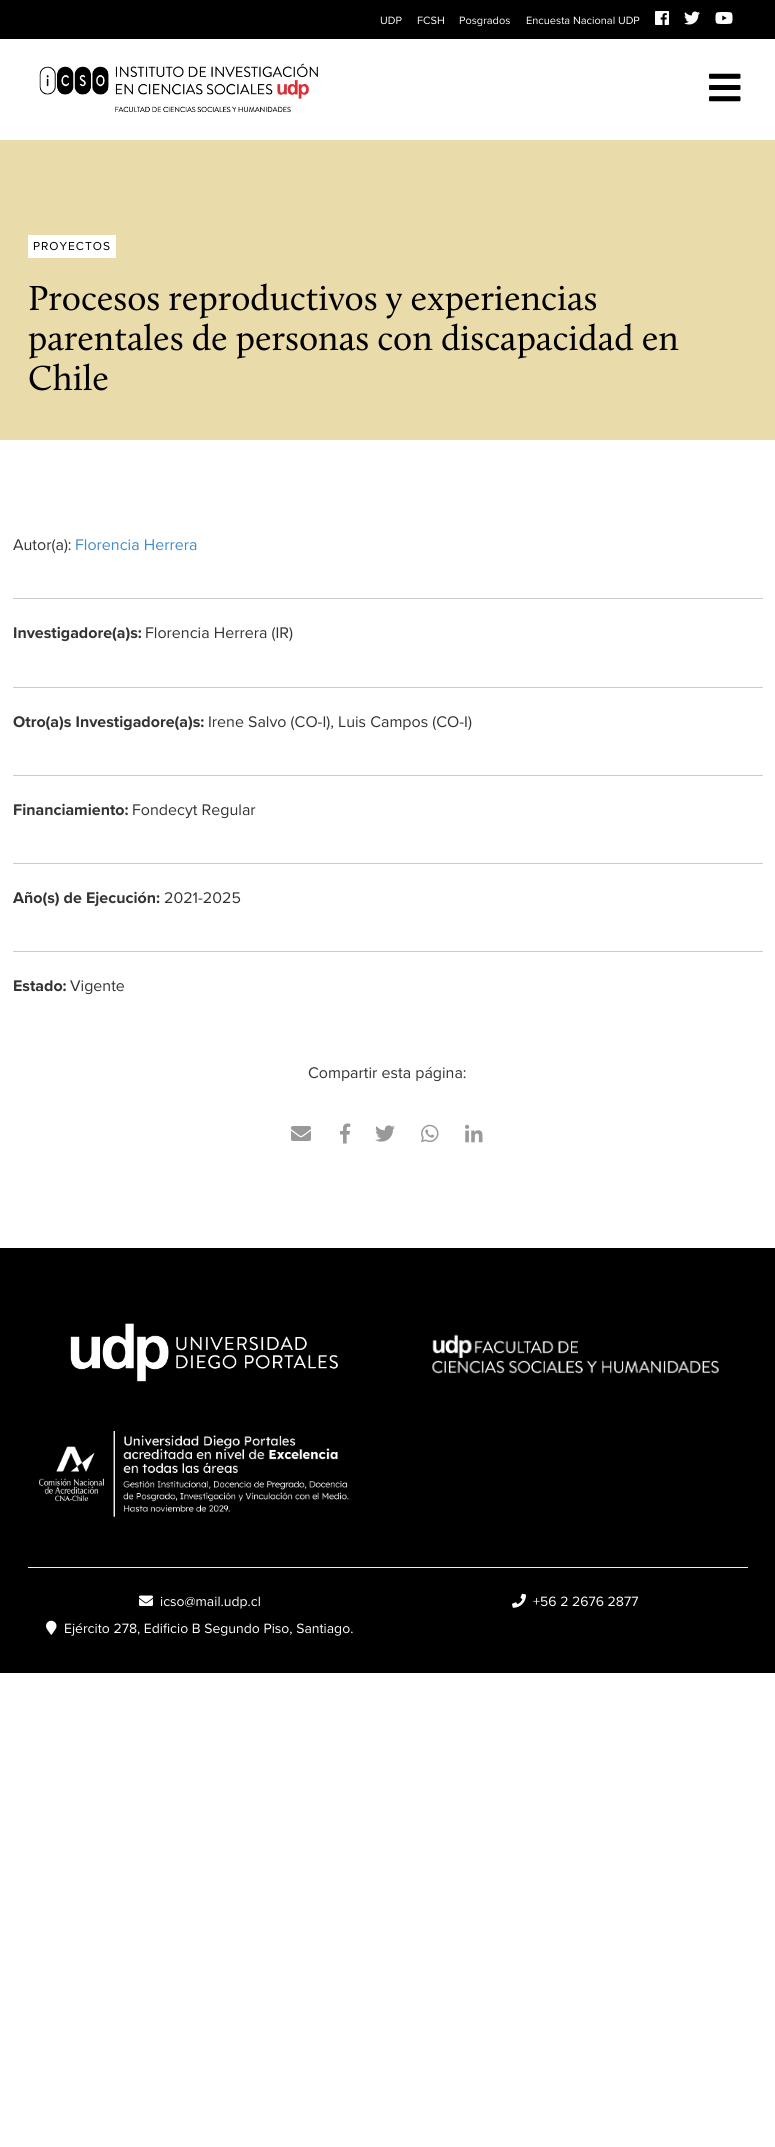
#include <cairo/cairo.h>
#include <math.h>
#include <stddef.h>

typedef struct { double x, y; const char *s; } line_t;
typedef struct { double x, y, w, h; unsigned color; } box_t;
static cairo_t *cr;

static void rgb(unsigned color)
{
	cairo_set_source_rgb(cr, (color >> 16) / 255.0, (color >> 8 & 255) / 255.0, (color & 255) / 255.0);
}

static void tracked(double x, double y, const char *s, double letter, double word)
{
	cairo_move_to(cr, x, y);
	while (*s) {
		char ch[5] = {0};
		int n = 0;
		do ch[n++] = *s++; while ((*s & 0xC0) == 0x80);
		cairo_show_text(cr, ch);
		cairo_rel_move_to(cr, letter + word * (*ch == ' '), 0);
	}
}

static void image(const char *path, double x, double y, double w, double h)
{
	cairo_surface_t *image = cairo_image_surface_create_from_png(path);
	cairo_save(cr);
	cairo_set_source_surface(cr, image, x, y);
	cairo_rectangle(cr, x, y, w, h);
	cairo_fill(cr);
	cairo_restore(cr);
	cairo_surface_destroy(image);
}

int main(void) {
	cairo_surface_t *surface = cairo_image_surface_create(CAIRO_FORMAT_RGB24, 775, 2147);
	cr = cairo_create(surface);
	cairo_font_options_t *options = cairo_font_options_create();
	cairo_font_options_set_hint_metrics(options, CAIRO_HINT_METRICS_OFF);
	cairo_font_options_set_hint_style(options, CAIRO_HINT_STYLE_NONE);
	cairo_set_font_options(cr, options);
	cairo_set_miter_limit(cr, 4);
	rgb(0xffffff);
	cairo_paint(cr);
	rgb(0x000000);
	cairo_rectangle(cr, 0, 0, 775, 39);
	cairo_fill(cr);
	image("img/1.png", 655, 11, 14, 14);
	image("img/2.png", 684, 11, 16, 14);
	image("img/3.png", 715, 12, 18, 12);
	image("img/4.png", 39, 63, 279, 50);
	image("img/5.png", 709, 73, 32, 29);
	{
		static const box_t items[] = {
			{0, 140, 775, 300, 0xeadbaa},
			{28, 235, 88, 23, 0xffffff},
			{13, 598, 750, 1, 0xcccccc},
			{13, 687, 750, 1, 0xcccccc},
			{13, 775, 750, 1, 0xcccccc},
			{13, 863, 750, 1, 0xcccccc},
			{13, 951, 750, 1, 0xcccccc},
		};
		for (size_t i = 0; i < sizeof items / sizeof *items; i++) {
			rgb(items[i].color);
			cairo_rectangle(cr, items[i].x, items[i].y, items[i].w, items[i].h);
			cairo_fill(cr);
		}
	}
	image("img/6.png", 291, 1126, 20, 15);
	image("img/7.png", 340, 1123, 11, 21);
	image("img/8.png", 375, 1125, 20, 17);
	image("img/9.png", 421, 1124, 18, 19);
	image("img/10.png", 465, 1124, 18, 19);
	rgb(0x000000);
	cairo_rectangle(cr, 0, 1248, 775, 425);
	cairo_fill(cr);
	image("img/11.png", 70, 1323, 268, 59);
	image("img/12.png", 432, 1334, 287, 40);
	image("img/13.png", 39, 1431, 310, 86);
	rgb(0xeeeeee);
	cairo_rectangle(cr, 28, 1567, 720, 1);
	cairo_fill(cr);
	image("img/14.png", 139, 1595, 14, 11);
	image("img/15.png", 512, 1593, 14, 15);
	image("img/16.png", 46, 1620, 11, 15);
	cairo_select_font_face(cr, "Proxima Nova", CAIRO_FONT_SLANT_NORMAL, CAIRO_FONT_WEIGHT_NORMAL);
	cairo_set_font_size(cr, 11);
	rgb(0xffffff);
	{
		static const line_t items[] = {
			{380, 24, "UDP"},
			{417, 24, "FCSH"},
			{459, 24, "Posgrados"},
			{526, 24, "Encuesta Nacional UDP"},
		};
		for (size_t i = 0; i < sizeof items / sizeof *items; i++) {
			cairo_move_to(cr, items[i].x, items[i].y);
			cairo_show_text(cr, items[i].s);
		}
	}
	cairo_set_font_size(cr, 12);
	rgb(0x000000);
	tracked(33, 250, "PROYECTOS", 1, 0);
	cairo_select_font_face(cr, "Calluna", CAIRO_FONT_SLANT_NORMAL, CAIRO_FONT_WEIGHT_NORMAL);
	cairo_set_font_size(cr, 36);
	{
		static const line_t items[] = {
			{28, 310, "Procesos reproductivos y experiencias"},
			{28, 350, "parentales de personas con discapacidad en"},
			{28, 390, "Chile"},
		};
		for (size_t i = 0; i < sizeof items / sizeof *items; i++) {
			cairo_move_to(cr, items[i].x, items[i].y);
			cairo_show_text(cr, items[i].s);
		}
	}
	cairo_select_font_face(cr, "Proxima Nova", CAIRO_FONT_SLANT_NORMAL, CAIRO_FONT_WEIGHT_NORMAL);
	cairo_set_font_size(cr, 16);
	rgb(0x333333);
	cairo_move_to(cr, 13, 550);
	cairo_show_text(cr, "Autor(a):");
	rgb(0x428bca);
	cairo_move_to(cr, 75, 550);
	cairo_show_text(cr, "Florencia Herrera");
	cairo_select_font_face(cr, "Proxima Nova", CAIRO_FONT_SLANT_NORMAL, CAIRO_FONT_WEIGHT_BOLD);
	rgb(0x333333);
	cairo_move_to(cr, 13, 638);
	cairo_show_text(cr, "Investigadore(a)s:");
	cairo_select_font_face(cr, "Proxima Nova", CAIRO_FONT_SLANT_NORMAL, CAIRO_FONT_WEIGHT_NORMAL);
	cairo_move_to(cr, 145, 638);
	cairo_show_text(cr, "Florencia Herrera (IR)");
	cairo_select_font_face(cr, "Proxima Nova", CAIRO_FONT_SLANT_NORMAL, CAIRO_FONT_WEIGHT_BOLD);
	cairo_move_to(cr, 13, 727);
	cairo_show_text(cr, "Otro(a)s Investigadore(a)s:");
	cairo_select_font_face(cr, "Proxima Nova", CAIRO_FONT_SLANT_NORMAL, CAIRO_FONT_WEIGHT_NORMAL);
	cairo_move_to(cr, 208, 727);
	cairo_show_text(cr, "Irene Salvo (CO-I), Luis Campos (CO-I)");
	cairo_select_font_face(cr, "Proxima Nova", CAIRO_FONT_SLANT_NORMAL, CAIRO_FONT_WEIGHT_BOLD);
	cairo_move_to(cr, 13, 815);
	cairo_show_text(cr, "Financiamiento:");
	cairo_select_font_face(cr, "Proxima Nova", CAIRO_FONT_SLANT_NORMAL, CAIRO_FONT_WEIGHT_NORMAL);
	cairo_move_to(cr, 132, 815);
	cairo_show_text(cr, "Fondecyt Regular");
	cairo_select_font_face(cr, "Proxima Nova", CAIRO_FONT_SLANT_NORMAL, CAIRO_FONT_WEIGHT_BOLD);
	cairo_move_to(cr, 13, 903);
	cairo_show_text(cr, "Año(s) de Ejecución:");
	cairo_select_font_face(cr, "Proxima Nova", CAIRO_FONT_SLANT_NORMAL, CAIRO_FONT_WEIGHT_NORMAL);
	cairo_move_to(cr, 164, 903);
	cairo_show_text(cr, "2021-2025");
	cairo_select_font_face(cr, "Proxima Nova", CAIRO_FONT_SLANT_NORMAL, CAIRO_FONT_WEIGHT_BOLD);
	cairo_move_to(cr, 13, 991);
	cairo_show_text(cr, "Estado:");
	cairo_select_font_face(cr, "Proxima Nova", CAIRO_FONT_SLANT_NORMAL, CAIRO_FONT_WEIGHT_NORMAL);
	cairo_move_to(cr, 70, 991);
	cairo_show_text(cr, "Vigente");
	cairo_move_to(cr, 308, 1078);
	cairo_show_text(cr, "Compartir esta página:");
	cairo_set_font_size(cr, 14);
	rgb(0xffffff);
	{
		static const line_t items[] = {
			{160, 1606, "icso@mail.udp.cl"},
			{533, 1606, "+56 2 2676 2877"},
			{64, 1633, "Ejército 278, Edificio B Segundo Piso, Santiago."},
		};
		for (size_t i = 0; i < sizeof items / sizeof *items; i++) {
			cairo_move_to(cr, items[i].x, items[i].y);
			cairo_show_text(cr, items[i].s);
		}
	}
	cairo_surface_write_to_png(surface, "page.png");
	cairo_font_options_destroy(options);
	cairo_destroy(cr);
	cairo_surface_destroy(surface);
	return 0;
}
